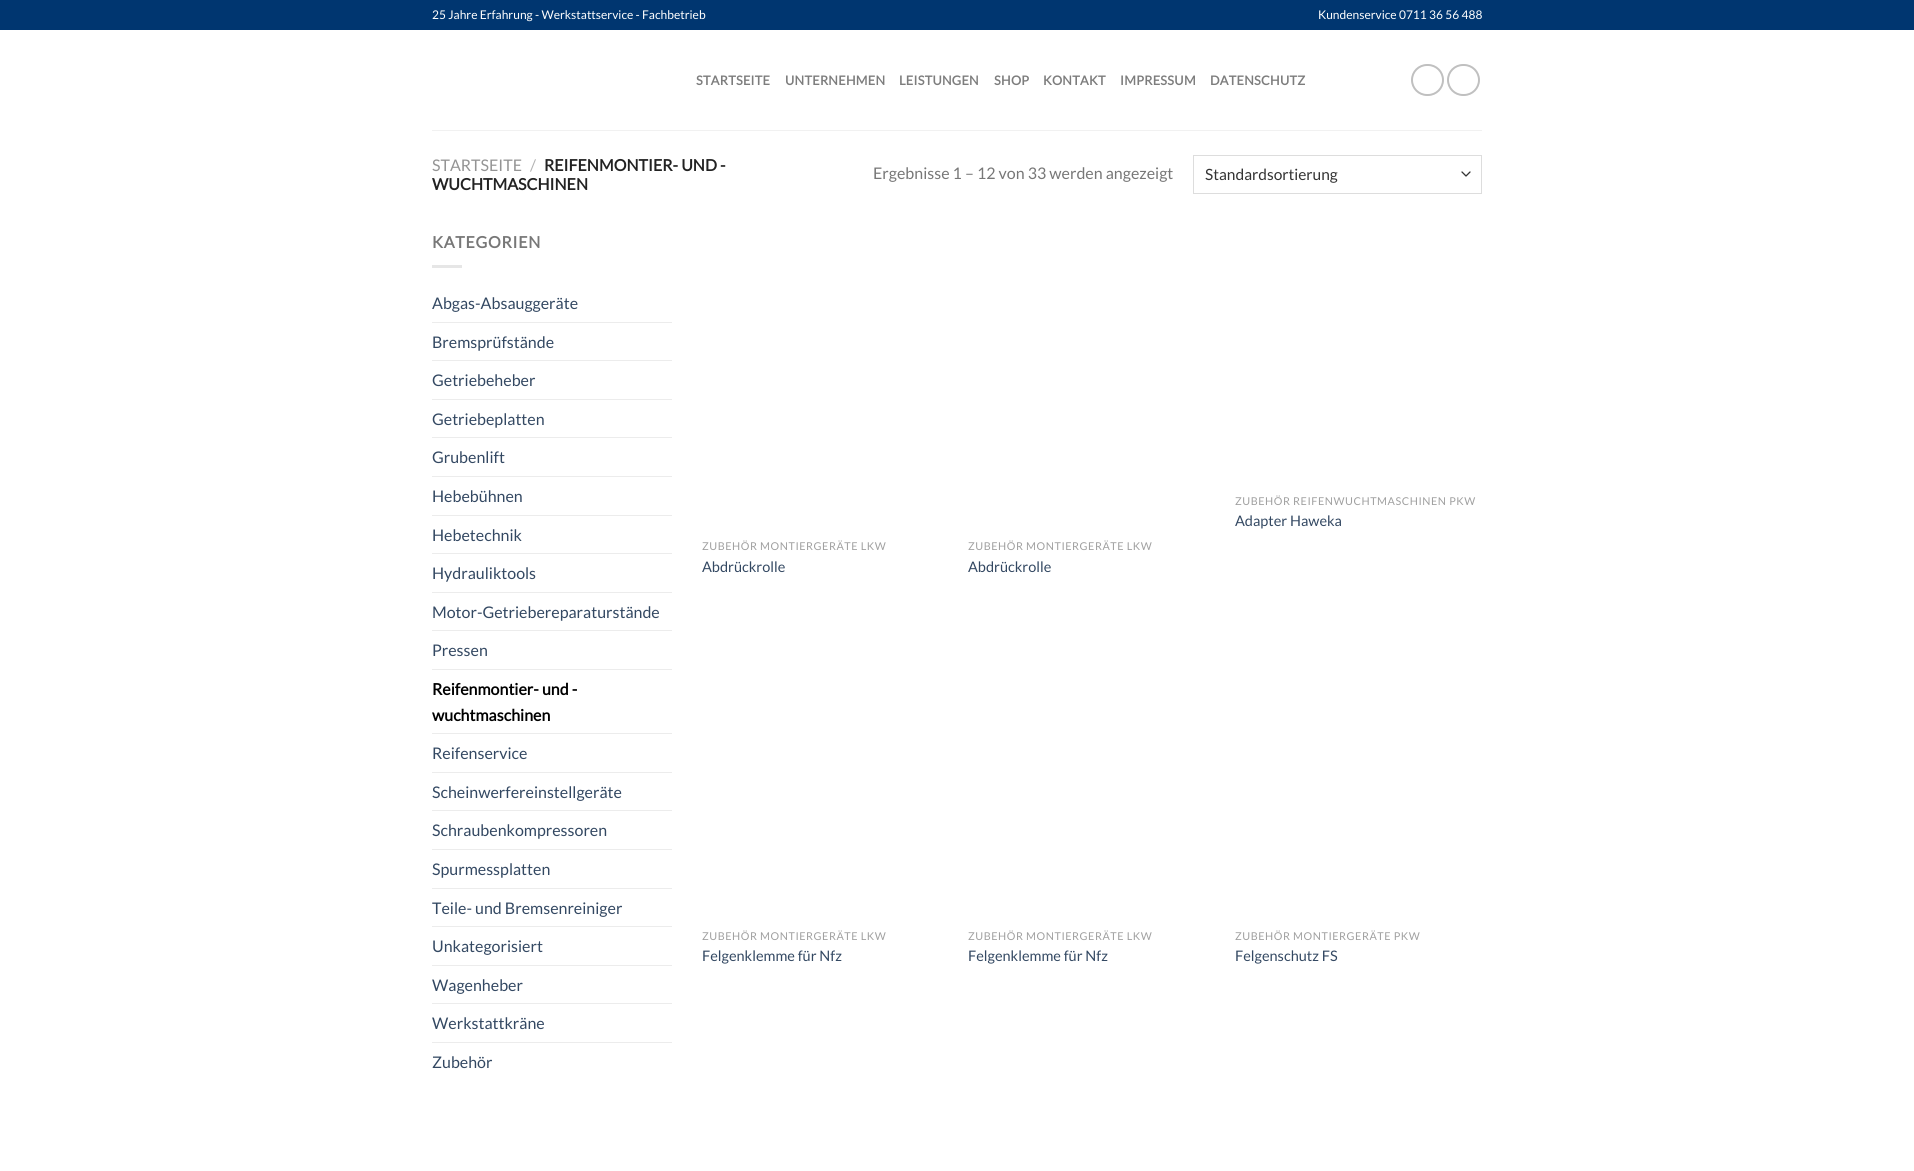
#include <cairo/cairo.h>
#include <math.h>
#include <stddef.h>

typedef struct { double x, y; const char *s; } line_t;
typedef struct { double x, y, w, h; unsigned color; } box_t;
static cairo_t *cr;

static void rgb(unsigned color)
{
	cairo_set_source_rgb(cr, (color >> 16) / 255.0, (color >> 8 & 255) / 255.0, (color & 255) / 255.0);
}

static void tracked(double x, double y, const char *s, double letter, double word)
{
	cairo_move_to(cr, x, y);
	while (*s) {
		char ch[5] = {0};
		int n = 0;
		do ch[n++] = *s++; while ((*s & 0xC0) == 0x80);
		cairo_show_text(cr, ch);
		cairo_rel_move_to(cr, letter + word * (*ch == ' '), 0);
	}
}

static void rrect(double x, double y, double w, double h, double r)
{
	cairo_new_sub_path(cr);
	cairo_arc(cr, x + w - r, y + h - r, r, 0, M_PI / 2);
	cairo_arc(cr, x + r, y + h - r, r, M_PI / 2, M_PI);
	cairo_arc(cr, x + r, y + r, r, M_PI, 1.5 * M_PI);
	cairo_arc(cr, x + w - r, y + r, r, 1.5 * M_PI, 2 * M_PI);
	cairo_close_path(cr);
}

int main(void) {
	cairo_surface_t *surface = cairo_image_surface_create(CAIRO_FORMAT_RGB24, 1914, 1171);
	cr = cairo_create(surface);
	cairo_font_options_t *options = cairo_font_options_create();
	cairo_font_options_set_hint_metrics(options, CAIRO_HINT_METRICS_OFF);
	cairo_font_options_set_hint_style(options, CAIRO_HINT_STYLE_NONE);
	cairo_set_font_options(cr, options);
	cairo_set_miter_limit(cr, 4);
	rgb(0xffffff);
	cairo_paint(cr);
	rgb(0x003670);
	cairo_rectangle(cr, 0, 0, 1914, 30);
	cairo_fill(cr);
	rrect(1412, 65, 31, 30, 15);
	rgb(0xc0c0c0);
	cairo_stroke(cr);
	rrect(1448, 65, 31, 30, 15);
	cairo_stroke(cr);
	rgb(0xf1f1f1);
	cairo_rectangle(cr, 432, 130, 1050, 1);
	cairo_fill(cr);
	cairo_new_path(cr);
	cairo_move_to(cr, 1462, 172);
	cairo_line_to(cr, 1466, 176);
	cairo_line_to(cr, 1470, 172);
	rgb(0x333333);
	cairo_set_line_width(cr, 1.3);
	cairo_set_line_cap(cr, CAIRO_LINE_CAP_ROUND);
	cairo_set_line_join(cr, CAIRO_LINE_JOIN_ROUND);
	cairo_stroke(cr);
	cairo_rectangle(cr, 1193.5, 155.5, 288, 38);
	rgb(0xdddddd);
	cairo_set_line_width(cr, 1);
	cairo_set_line_cap(cr, CAIRO_LINE_CAP_BUTT);
	cairo_set_line_join(cr, CAIRO_LINE_JOIN_MITER);
	cairo_stroke(cr);
	{
		static const box_t items[] = {
			{432, 265, 30, 3, 0xe6e6e6},
			{432, 322, 240, 1, 0xececec},
			{432, 360, 240, 1, 0xececec},
			{432, 399, 240, 1, 0xececec},
			{432, 437, 240, 1, 0xececec},
			{432, 476, 240, 1, 0xececec},
			{432, 515, 240, 1, 0xececec},
			{432, 553, 240, 1, 0xececec},
			{432, 592, 240, 1, 0xececec},
			{432, 630, 240, 1, 0xececec},
			{432, 669, 240, 1, 0xececec},
			{432, 733, 240, 1, 0xececec},
			{432, 772, 240, 1, 0xececec},
			{432, 810, 240, 1, 0xececec},
			{432, 849, 240, 1, 0xececec},
			{432, 888, 240, 1, 0xececec},
			{432, 926, 240, 1, 0xececec},
			{432, 965, 240, 1, 0xececec},
			{432, 1003, 240, 1, 0xececec},
			{432, 1042, 240, 1, 0xececec},
		};
		for (size_t i = 0; i < sizeof items / sizeof *items; i++) {
			rgb(items[i].color);
			cairo_rectangle(cr, items[i].x, items[i].y, items[i].w, items[i].h);
			cairo_fill(cr);
		}
	}
	cairo_select_font_face(cr, "Lato", CAIRO_FONT_SLANT_NORMAL, CAIRO_FONT_WEIGHT_NORMAL);
	cairo_set_font_size(cr, 12);
	rgb(0xffffff);
	cairo_move_to(cr, 432, 19);
	cairo_show_text(cr, "25 Jahre Erfahrung - Werkstattservice - Fachbetrieb");
	cairo_move_to(cr, 1318, 19);
	cairo_show_text(cr, "Kundenservice 0711 36 56 488");
	cairo_select_font_face(cr, "Lato", CAIRO_FONT_SLANT_NORMAL, CAIRO_FONT_WEIGHT_BOLD);
	cairo_set_font_size(cr, 12.75);
	rgb(0x7d7d7d);
	{
		static const line_t items[] = {
			{696, 85, "STARTSEITE"},
			{785, 85, "UNTERNEHMEN"},
			{899, 85, "LEISTUNGEN"},
			{994, 85, "SHOP"},
			{1043, 85, "KONTAKT"},
			{1120, 85, "IMPRESSUM"},
			{1210, 85, "DATENSCHUTZ"},
		};
		for (size_t i = 0; i < sizeof items / sizeof *items; i++) {
			tracked(items[i].x, items[i].y, items[i].s, 0.25, 0);
		}
	}
	cairo_select_font_face(cr, "Lato", CAIRO_FONT_SLANT_NORMAL, CAIRO_FONT_WEIGHT_NORMAL);
	cairo_set_font_size(cr, 16);
	rgb(0x949494);
	cairo_move_to(cr, 432, 171);
	cairo_show_text(cr, "STARTSEITE");
	rgb(0xb2b2b2);
	cairo_move_to(cr, 530, 171);
	cairo_show_text(cr, "/");
	cairo_select_font_face(cr, "Lato", CAIRO_FONT_SLANT_NORMAL, CAIRO_FONT_WEIGHT_BOLD);
	rgb(0x222222);
	cairo_move_to(cr, 544, 171);
	cairo_show_text(cr, "REIFENMONTIER- UND -");
	cairo_move_to(cr, 432, 190);
	cairo_show_text(cr, "WUCHTMASCHINEN");
	cairo_select_font_face(cr, "Lato", CAIRO_FONT_SLANT_NORMAL, CAIRO_FONT_WEIGHT_NORMAL);
	rgb(0x777777);
	cairo_move_to(cr, 873, 179);
	cairo_show_text(cr, "Ergebnisse 1 – 12 von 33 werden angezeigt");
	cairo_set_font_size(cr, 15.5);
	rgb(0x333333);
	cairo_move_to(cr, 1205, 180);
	cairo_show_text(cr, "Standardsortierung");
	cairo_select_font_face(cr, "Lato", CAIRO_FONT_SLANT_NORMAL, CAIRO_FONT_WEIGHT_BOLD);
	cairo_set_font_size(cr, 16);
	rgb(0x777777);
	tracked(432, 248, "KATEGORIEN", 0.75, 0);
	cairo_select_font_face(cr, "Lato", CAIRO_FONT_SLANT_NORMAL, CAIRO_FONT_WEIGHT_NORMAL);
	rgb(0x334862);
	{
		static const line_t items[] = {
			{432, 309, "Abgas-Absauggeräte"},
			{432, 348, "Bremsprüfstände"},
			{432, 386, "Getriebeheber"},
			{432, 425, "Getriebeplatten"},
			{432, 463, "Grubenlift"},
			{432, 502, "Hebebühnen"},
			{432, 541, "Hebetechnik"},
			{432, 579, "Hydrauliktools"},
			{432, 618, "Motor-Getriebereparaturstände"},
			{432, 656, "Pressen"},
		};
		for (size_t i = 0; i < sizeof items / sizeof *items; i++) {
			cairo_move_to(cr, items[i].x, items[i].y);
			cairo_show_text(cr, items[i].s);
		}
	}
	cairo_select_font_face(cr, "Lato", CAIRO_FONT_SLANT_NORMAL, CAIRO_FONT_WEIGHT_BOLD);
	rgb(0x000000);
	cairo_move_to(cr, 432, 695);
	cairo_show_text(cr, "Reifenmontier- und -");
	cairo_move_to(cr, 432, 721);
	cairo_show_text(cr, "wuchtmaschinen");
	cairo_select_font_face(cr, "Lato", CAIRO_FONT_SLANT_NORMAL, CAIRO_FONT_WEIGHT_NORMAL);
	rgb(0x334862);
	{
		static const line_t items[] = {
			{432, 759, "Reifenservice"},
			{432, 798, "Scheinwerfereinstellgeräte"},
			{432, 836, "Schraubenkompressoren"},
			{432, 875, "Spurmessplatten"},
			{432, 914, "Teile- und Bremsenreiniger"},
			{432, 952, "Unkategorisiert"},
			{432, 991, "Wagenheber"},
			{432, 1029, "Werkstattkräne"},
			{432, 1068, "Zubehör"},
		};
		for (size_t i = 0; i < sizeof items / sizeof *items; i++) {
			cairo_move_to(cr, items[i].x, items[i].y);
			cairo_show_text(cr, items[i].s);
		}
	}
	cairo_set_font_size(cr, 10.8);
	rgb(0xa0a0a0);
	tracked(1235, 505, "ZUBEHÖR REIFENWUCHTMASCHINEN PKW", 0.55, 0);
	cairo_set_font_size(cr, 14.5);
	rgb(0x334862);
	cairo_move_to(cr, 1235, 526);
	cairo_show_text(cr, "Adapter Haweka");
	cairo_set_font_size(cr, 10.8);
	rgb(0xa0a0a0);
	tracked(702, 550, "ZUBEHÖR MONTIERGERÄTE LKW", 0.55, 0);
	cairo_set_font_size(cr, 14.5);
	rgb(0x334862);
	cairo_move_to(cr, 702, 572);
	cairo_show_text(cr, "Abdrückrolle");
	cairo_set_font_size(cr, 10.8);
	rgb(0xa0a0a0);
	tracked(968, 550, "ZUBEHÖR MONTIERGERÄTE LKW", 0.55, 0);
	cairo_set_font_size(cr, 14.5);
	rgb(0x334862);
	cairo_move_to(cr, 968, 572);
	cairo_show_text(cr, "Abdrückrolle");
	cairo_set_font_size(cr, 10.8);
	rgb(0xa0a0a0);
	tracked(702, 940, "ZUBEHÖR MONTIERGERÄTE LKW", 0.55, 0);
	cairo_set_font_size(cr, 14.5);
	rgb(0x334862);
	cairo_move_to(cr, 702, 961);
	cairo_show_text(cr, "Felgenklemme für Nfz");
	cairo_set_font_size(cr, 10.8);
	rgb(0xa0a0a0);
	tracked(968, 940, "ZUBEHÖR MONTIERGERÄTE LKW", 0.55, 0);
	cairo_set_font_size(cr, 14.5);
	rgb(0x334862);
	cairo_move_to(cr, 968, 961);
	cairo_show_text(cr, "Felgenklemme für Nfz");
	cairo_set_font_size(cr, 10.8);
	rgb(0xa0a0a0);
	tracked(1235, 940, "ZUBEHÖR MONTIERGERÄTE PKW", 0.55, 0);
	cairo_set_font_size(cr, 14.5);
	rgb(0x334862);
	cairo_move_to(cr, 1235, 961);
	cairo_show_text(cr, "Felgenschutz FS");
	cairo_surface_write_to_png(surface, "page.png");
	cairo_font_options_destroy(options);
	cairo_destroy(cr);
	cairo_surface_destroy(surface);
	return 0;
}
